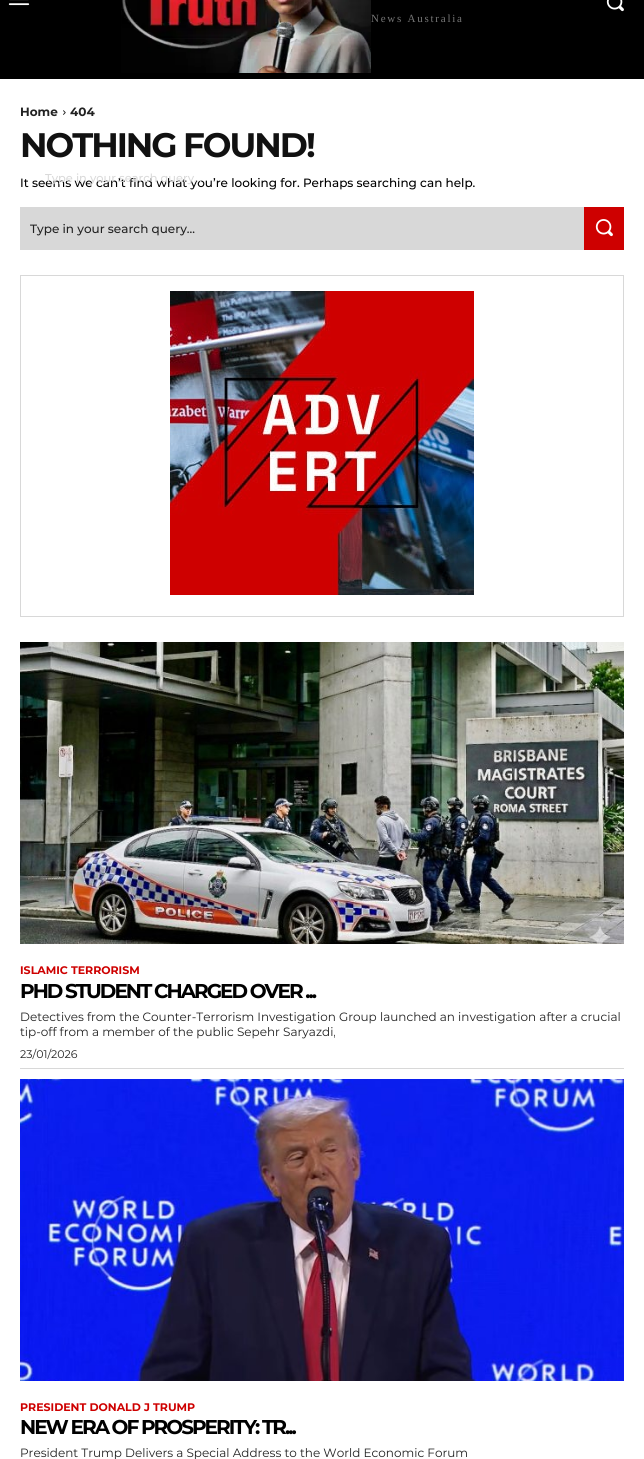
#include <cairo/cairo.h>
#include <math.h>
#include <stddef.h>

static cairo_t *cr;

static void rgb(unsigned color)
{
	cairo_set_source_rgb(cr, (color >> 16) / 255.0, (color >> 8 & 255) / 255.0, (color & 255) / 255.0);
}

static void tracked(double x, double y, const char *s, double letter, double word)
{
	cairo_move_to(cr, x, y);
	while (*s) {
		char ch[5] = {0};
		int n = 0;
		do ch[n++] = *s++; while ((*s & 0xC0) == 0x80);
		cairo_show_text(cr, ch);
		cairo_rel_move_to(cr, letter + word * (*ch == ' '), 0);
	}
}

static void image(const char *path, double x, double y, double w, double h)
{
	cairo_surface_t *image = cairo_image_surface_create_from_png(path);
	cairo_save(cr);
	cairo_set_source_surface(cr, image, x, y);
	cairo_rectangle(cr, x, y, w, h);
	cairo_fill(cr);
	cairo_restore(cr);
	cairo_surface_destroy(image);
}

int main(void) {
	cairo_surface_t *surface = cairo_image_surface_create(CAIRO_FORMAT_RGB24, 644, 1459);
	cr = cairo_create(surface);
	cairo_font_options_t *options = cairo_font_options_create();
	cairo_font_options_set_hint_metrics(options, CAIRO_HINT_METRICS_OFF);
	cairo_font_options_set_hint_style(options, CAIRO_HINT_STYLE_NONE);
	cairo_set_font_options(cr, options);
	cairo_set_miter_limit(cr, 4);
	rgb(0xffffff);
	cairo_paint(cr);
	rgb(0x000000);
	cairo_rectangle(cr, 0, 0, 644, 79);
	cairo_fill(cr);
	image("img/1.png", 8, 0, 22, 6);
	image("img/2.png", 606, 0, 18, 12);
	image("img/3.png", 121, 0, 250, 73);
	image("img/4.png", 63, 110, 3, 5);
	rgb(0xd8d8d8);
	cairo_rectangle(cr, 20, 207, 564, 43);
	cairo_fill(cr);
	rgb(0xce0000);
	cairo_rectangle(cr, 584, 207, 40, 43);
	cairo_fill(cr);
	image("img/5.png", 595, 219, 18, 18);
	cairo_rectangle(cr, 20.5, 275.5, 603, 341);
	rgb(0xd8d8d8);
	cairo_set_line_width(cr, 1);
	cairo_stroke(cr);
	image("img/6.png", 170, 291, 304, 304);
	image("img/7.png", 20, 642, 604, 302);
	cairo_rectangle(cr, 20, 1068, 604, 1);
	cairo_fill(cr);
	image("img/8.png", 20, 1079, 604, 302);
	cairo_select_font_face(cr, "Liberation Serif", CAIRO_FONT_SLANT_NORMAL, CAIRO_FONT_WEIGHT_NORMAL);
	cairo_set_font_size(cr, 11);
	rgb(0x767676);
	tracked(371, 22, "News Australia", 1.75, 0);
	cairo_select_font_face(cr, "Montserrat", CAIRO_FONT_SLANT_NORMAL, CAIRO_FONT_WEIGHT_BOLD);
	cairo_set_font_size(cr, 12);
	rgb(0x222222);
	cairo_move_to(cr, 20, 116);
	cairo_show_text(cr, "Home");
	cairo_move_to(cr, 70, 116);
	cairo_show_text(cr, "404");
	cairo_set_font_size(cr, 34);
	rgb(0x111111);
	tracked(20, 157, "NOTHING FOUND!", -2, 0);
	cairo_select_font_face(cr, "Montserrat Medium", CAIRO_FONT_SLANT_NORMAL, CAIRO_FONT_WEIGHT_NORMAL);
	cairo_set_font_size(cr, 12);
	rgb(0x000000);
	cairo_move_to(cr, 20, 187);
	cairo_show_text(cr, "It seems we can’t find what you’re looking for. Perhaps searching can help.");
	rgb(0x222222);
	cairo_move_to(cr, 30, 233);
	cairo_show_text(cr, "Type in your search query...");
	cairo_select_font_face(cr, "Montserrat", CAIRO_FONT_SLANT_NORMAL, CAIRO_FONT_WEIGHT_BOLD);
	cairo_set_font_size(cr, 11);
	rgb(0xce0000);
	cairo_move_to(cr, 20, 974);
	cairo_show_text(cr, "ISLAMIC TERRORISM");
	cairo_set_font_size(cr, 20);
	rgb(0x000000);
	tracked(20, 998, "PHD STUDENT CHARGED OVER ...", -2, 0);
	cairo_select_font_face(cr, "Montserrat", CAIRO_FONT_SLANT_NORMAL, CAIRO_FONT_WEIGHT_NORMAL);
	cairo_set_font_size(cr, 12);
	rgb(0x222222);
	cairo_move_to(cr, 20, 1021);
	cairo_show_text(cr, "Detectives from the Counter-Terrorism Investigation Group launched an investigation after a crucial");
	cairo_move_to(cr, 20, 1036);
	cairo_show_text(cr, "tip-off from a member of the public Sepehr Saryazdi,");
	cairo_set_font_size(cr, 11);
	cairo_move_to(cr, 20, 1058);
	cairo_show_text(cr, "23/01/2026");
	cairo_select_font_face(cr, "Montserrat", CAIRO_FONT_SLANT_NORMAL, CAIRO_FONT_WEIGHT_BOLD);
	rgb(0xce0000);
	cairo_move_to(cr, 20, 1411);
	cairo_show_text(cr, "PRESIDENT DONALD J TRUMP");
	cairo_set_font_size(cr, 20);
	rgb(0x000000);
	tracked(20, 1434, "NEW ERA OF PROSPERITY: TR...", -2, 0);
	cairo_select_font_face(cr, "Montserrat", CAIRO_FONT_SLANT_NORMAL, CAIRO_FONT_WEIGHT_NORMAL);
	cairo_set_font_size(cr, 12);
	rgb(0x222222);
	cairo_move_to(cr, 20, 1457);
	cairo_show_text(cr, "President Trump Delivers a Special Address to the World Economic Forum");
	cairo_select_font_face(cr, "Montserrat Medium", CAIRO_FONT_SLANT_NORMAL, CAIRO_FONT_WEIGHT_NORMAL);
	cairo_set_font_size(cr, 11.4);
	rgb(0xdadada);
	cairo_move_to(cr, 45, 182);
	cairo_show_text(cr, "Type in your search query...");
	cairo_surface_write_to_png(surface, "page.png");
	cairo_font_options_destroy(options);
	cairo_destroy(cr);
	cairo_surface_destroy(surface);
	return 0;
}
